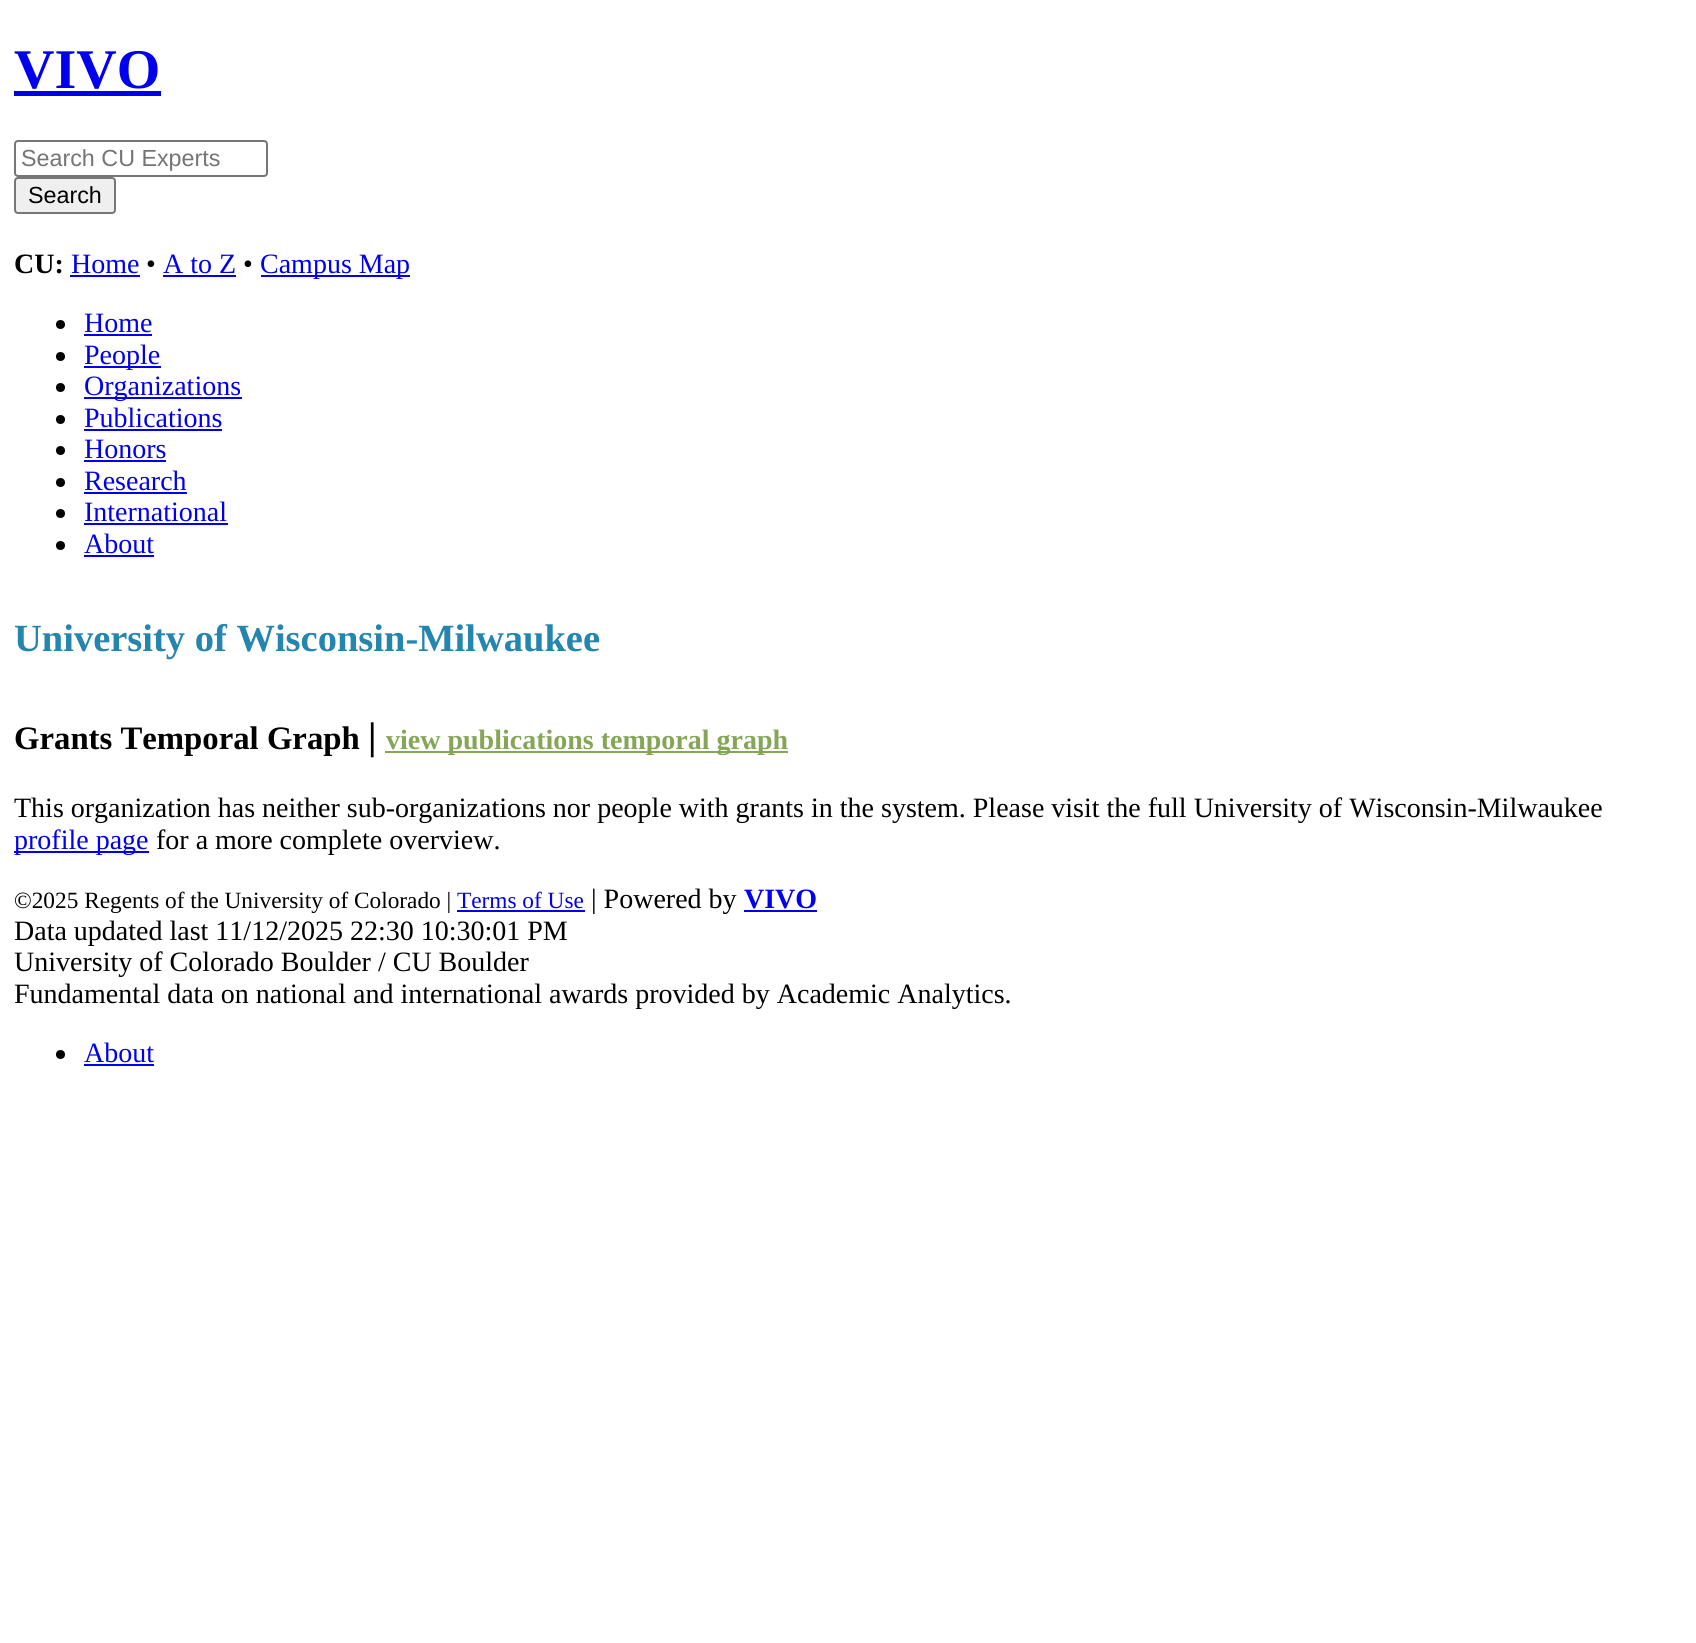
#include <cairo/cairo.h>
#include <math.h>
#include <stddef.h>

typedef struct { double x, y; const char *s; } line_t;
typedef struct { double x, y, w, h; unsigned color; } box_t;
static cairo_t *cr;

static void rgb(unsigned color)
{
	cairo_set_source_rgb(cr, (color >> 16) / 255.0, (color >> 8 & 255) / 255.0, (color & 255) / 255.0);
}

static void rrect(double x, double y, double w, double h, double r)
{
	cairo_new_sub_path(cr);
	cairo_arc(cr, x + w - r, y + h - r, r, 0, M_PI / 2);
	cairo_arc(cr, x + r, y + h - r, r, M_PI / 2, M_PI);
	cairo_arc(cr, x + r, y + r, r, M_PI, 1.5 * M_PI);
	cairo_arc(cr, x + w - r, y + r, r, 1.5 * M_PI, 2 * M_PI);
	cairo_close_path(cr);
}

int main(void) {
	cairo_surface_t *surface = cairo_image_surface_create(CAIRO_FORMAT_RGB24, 1696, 1643);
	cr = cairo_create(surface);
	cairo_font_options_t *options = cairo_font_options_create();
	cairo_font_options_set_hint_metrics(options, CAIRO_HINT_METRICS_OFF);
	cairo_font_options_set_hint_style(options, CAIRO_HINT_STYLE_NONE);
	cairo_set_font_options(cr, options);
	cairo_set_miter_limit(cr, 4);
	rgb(0xffffff);
	cairo_paint(cr);
	rgb(0x0000ee);
	cairo_rectangle(cr, 14, 91, 147, 5);
	cairo_fill(cr);
	rrect(15, 141, 252, 35, 3);
	rgb(0x767676);
	cairo_stroke(cr);
	rgb(0xefefef);
	rrect(15, 178, 100, 35, 3);
	cairo_fill_preserve(cr);
	rgb(0x767676);
	cairo_stroke(cr);
	{
		static const box_t items[] = {
			{70, 275, 70, 2, 0x0000ee},
			{163, 275, 73, 2, 0x0000ee},
			{261, 275, 149, 2, 0x0000ee},
		};
		for (size_t i = 0; i < sizeof items / sizeof *items; i++) {
			rgb(items[i].color);
			cairo_rectangle(cr, items[i].x, items[i].y, items[i].w, items[i].h);
			cairo_fill(cr);
		}
	}
	rgb(0x000000);
	cairo_arc(cr, 60.5, 324.5, 4.5, 0, 2 * M_PI);
	cairo_fill(cr);
	rgb(0x0000ee);
	cairo_rectangle(cr, 84, 334, 68, 2);
	cairo_fill(cr);
	rgb(0x000000);
	cairo_arc(cr, 60.5, 356.5, 4.5, 0, 2 * M_PI);
	cairo_fill(cr);
	rgb(0x0000ee);
	cairo_rectangle(cr, 84, 366, 77, 2);
	cairo_fill(cr);
	rgb(0x000000);
	cairo_arc(cr, 60.5, 387.5, 4.5, 0, 2 * M_PI);
	cairo_fill(cr);
	rgb(0x0000ee);
	cairo_rectangle(cr, 84, 397, 158, 2);
	cairo_fill(cr);
	rgb(0x000000);
	cairo_arc(cr, 60.5, 419.5, 4.5, 0, 2 * M_PI);
	cairo_fill(cr);
	rgb(0x0000ee);
	cairo_rectangle(cr, 84, 429, 138, 2);
	cairo_fill(cr);
	rgb(0x000000);
	cairo_arc(cr, 60.5, 450.5, 4.5, 0, 2 * M_PI);
	cairo_fill(cr);
	rgb(0x0000ee);
	cairo_rectangle(cr, 84, 460, 82, 2);
	cairo_fill(cr);
	rgb(0x000000);
	cairo_arc(cr, 60.5, 482.5, 4.5, 0, 2 * M_PI);
	cairo_fill(cr);
	rgb(0x0000ee);
	cairo_rectangle(cr, 84, 492, 103, 2);
	cairo_fill(cr);
	rgb(0x000000);
	cairo_arc(cr, 60.5, 513.5, 4.5, 0, 2 * M_PI);
	cairo_fill(cr);
	rgb(0x0000ee);
	cairo_rectangle(cr, 84, 523, 144, 2);
	cairo_fill(cr);
	rgb(0x000000);
	cairo_arc(cr, 60.5, 545.5, 4.5, 0, 2 * M_PI);
	cairo_fill(cr);
	{
		static const box_t items[] = {
			{84, 555, 70, 2, 0x0000ee},
			{385, 751, 403, 2, 0x84a655},
			{14, 851, 135, 2, 0x0000ee},
			{457, 910, 128, 2, 0x0000ee},
			{744, 910, 73, 2, 0x0000ee},
		};
		for (size_t i = 0; i < sizeof items / sizeof *items; i++) {
			rgb(items[i].color);
			cairo_rectangle(cr, items[i].x, items[i].y, items[i].w, items[i].h);
			cairo_fill(cr);
		}
	}
	rgb(0x000000);
	cairo_arc(cr, 60.5, 1054.5, 4.5, 0, 2 * M_PI);
	cairo_fill(cr);
	rgb(0x0000ee);
	cairo_rectangle(cr, 84, 1064, 70, 2);
	cairo_fill(cr);
	cairo_select_font_face(cr, "Liberation Serif", CAIRO_FONT_SLANT_NORMAL, CAIRO_FONT_WEIGHT_BOLD);
	cairo_set_font_size(cr, 56);
	cairo_move_to(cr, 14, 88);
	cairo_show_text(cr, "VIVO");
	cairo_select_font_face(cr, "Liberation Sans", CAIRO_FONT_SLANT_NORMAL, CAIRO_FONT_WEIGHT_NORMAL);
	cairo_set_font_size(cr, 23.3);
	rgb(0x757575);
	cairo_move_to(cr, 21, 166);
	cairo_show_text(cr, "Search CU Experts");
	rgb(0x000000);
	cairo_move_to(cr, 28, 203);
	cairo_show_text(cr, "Search");
	cairo_select_font_face(cr, "Liberation Serif", CAIRO_FONT_SLANT_NORMAL, CAIRO_FONT_WEIGHT_BOLD);
	cairo_set_font_size(cr, 28);
	cairo_move_to(cr, 14, 273);
	cairo_show_text(cr, "CU:");
	cairo_select_font_face(cr, "Liberation Serif", CAIRO_FONT_SLANT_NORMAL, CAIRO_FONT_WEIGHT_NORMAL);
	rgb(0x0000ee);
	cairo_move_to(cr, 71, 273);
	cairo_show_text(cr, "Home");
	rgb(0x000000);
	cairo_move_to(cr, 146, 273);
	cairo_show_text(cr, "•");
	rgb(0x0000ee);
	cairo_move_to(cr, 163, 273);
	cairo_show_text(cr, "A to Z");
	rgb(0x000000);
	cairo_move_to(cr, 243, 273);
	cairo_show_text(cr, "•");
	rgb(0x0000ee);
	{
		static const line_t items[] = {
			{260, 273, "Campus Map"},
			{84, 332, "Home"},
			{84, 364, "People"},
			{84, 395, "Organizations"},
			{84, 427, "Publications"},
			{84, 458, "Honors"},
			{84, 490, "Research"},
			{84, 521, "International"},
			{84, 553, "About"},
		};
		for (size_t i = 0; i < sizeof items / sizeof *items; i++) {
			cairo_move_to(cr, items[i].x, items[i].y);
			cairo_show_text(cr, items[i].s);
		}
	}
	cairo_select_font_face(cr, "Liberation Serif", CAIRO_FONT_SLANT_NORMAL, CAIRO_FONT_WEIGHT_BOLD);
	cairo_set_font_size(cr, 38.5);
	rgb(0x2485ae);
	cairo_move_to(cr, 14, 651);
	cairo_show_text(cr, "University of Wisconsin-Milwaukee");
	cairo_set_font_size(cr, 32.75);
	rgb(0x000000);
	cairo_move_to(cr, 14, 749);
	cairo_show_text(cr, "Grants Temporal Graph");
	cairo_set_font_size(cr, 38.5);
	cairo_move_to(cr, 368, 749);
	cairo_show_text(cr, "|");
	cairo_set_font_size(cr, 28);
	rgb(0x84a655);
	cairo_move_to(cr, 386, 749);
	cairo_show_text(cr, "view publications temporal graph");
	cairo_select_font_face(cr, "Liberation Serif", CAIRO_FONT_SLANT_NORMAL, CAIRO_FONT_WEIGHT_NORMAL);
	rgb(0x000000);
	cairo_move_to(cr, 14, 817);
	cairo_show_text(cr, "This organization has neither sub-organizations nor people with grants in the system. Please visit the full University of Wisconsin-Milwaukee");
	rgb(0x0000ee);
	cairo_move_to(cr, 14, 849);
	cairo_show_text(cr, "profile page");
	rgb(0x000000);
	cairo_move_to(cr, 156, 849);
	cairo_show_text(cr, "for a more complete overview.");
	cairo_set_font_size(cr, 23.3);
	cairo_move_to(cr, 14, 908);
	cairo_show_text(cr, "©2025 Regents of the University of Colorado |");
	rgb(0x0000ee);
	cairo_move_to(cr, 457, 908);
	cairo_show_text(cr, "Terms of Use");
	cairo_set_font_size(cr, 28);
	rgb(0x000000);
	cairo_move_to(cr, 591, 908);
	cairo_show_text(cr, "| Powered by");
	cairo_select_font_face(cr, "Liberation Serif", CAIRO_FONT_SLANT_NORMAL, CAIRO_FONT_WEIGHT_BOLD);
	rgb(0x0000ee);
	cairo_move_to(cr, 744, 908);
	cairo_show_text(cr, "VIVO");
	cairo_select_font_face(cr, "Liberation Serif", CAIRO_FONT_SLANT_NORMAL, CAIRO_FONT_WEIGHT_NORMAL);
	rgb(0x000000);
	{
		static const line_t items[] = {
			{14, 940, "Data updated last 11/12/2025 22:30 10:30:01 PM"},
			{14, 971, "University of Colorado Boulder / CU Boulder"},
			{14, 1003, "Fundamental data on national and international awards provided by Academic Analytics."},
		};
		for (size_t i = 0; i < sizeof items / sizeof *items; i++) {
			cairo_move_to(cr, items[i].x, items[i].y);
			cairo_show_text(cr, items[i].s);
		}
	}
	rgb(0x0000ee);
	cairo_move_to(cr, 84, 1062);
	cairo_show_text(cr, "About");
	cairo_surface_write_to_png(surface, "page.png");
	cairo_font_options_destroy(options);
	cairo_destroy(cr);
	cairo_surface_destroy(surface);
	return 0;
}
